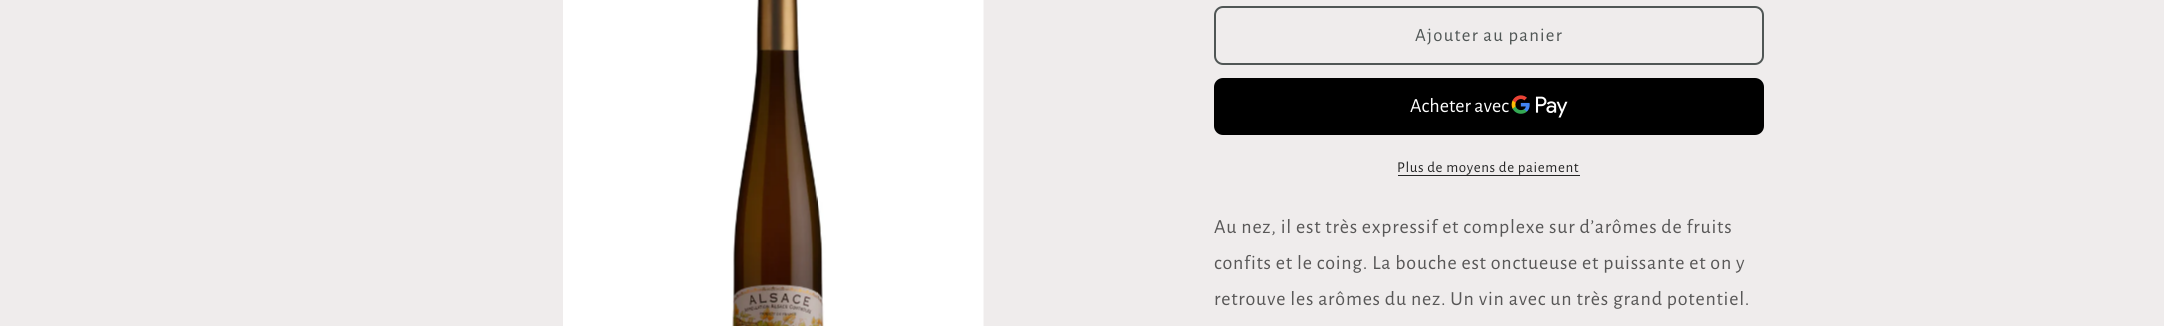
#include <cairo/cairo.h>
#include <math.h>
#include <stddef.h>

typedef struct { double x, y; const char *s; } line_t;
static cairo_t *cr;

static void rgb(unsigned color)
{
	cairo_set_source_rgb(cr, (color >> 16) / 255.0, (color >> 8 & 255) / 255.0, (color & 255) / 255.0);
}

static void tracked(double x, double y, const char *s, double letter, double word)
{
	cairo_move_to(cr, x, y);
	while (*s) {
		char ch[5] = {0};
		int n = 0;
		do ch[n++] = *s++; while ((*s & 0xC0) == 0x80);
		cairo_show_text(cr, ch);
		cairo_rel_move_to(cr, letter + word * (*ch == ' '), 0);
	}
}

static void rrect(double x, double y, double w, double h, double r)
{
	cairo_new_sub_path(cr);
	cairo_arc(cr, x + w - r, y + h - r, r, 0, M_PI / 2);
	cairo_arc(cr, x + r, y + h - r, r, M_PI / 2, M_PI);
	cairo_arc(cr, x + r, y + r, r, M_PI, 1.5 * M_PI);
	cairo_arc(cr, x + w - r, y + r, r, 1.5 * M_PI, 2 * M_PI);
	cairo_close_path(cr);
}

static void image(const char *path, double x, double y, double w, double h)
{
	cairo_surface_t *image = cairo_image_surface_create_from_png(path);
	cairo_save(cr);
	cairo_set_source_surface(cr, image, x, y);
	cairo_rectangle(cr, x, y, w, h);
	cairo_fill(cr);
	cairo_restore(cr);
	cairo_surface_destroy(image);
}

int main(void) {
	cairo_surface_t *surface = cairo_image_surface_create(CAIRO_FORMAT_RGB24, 2164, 326);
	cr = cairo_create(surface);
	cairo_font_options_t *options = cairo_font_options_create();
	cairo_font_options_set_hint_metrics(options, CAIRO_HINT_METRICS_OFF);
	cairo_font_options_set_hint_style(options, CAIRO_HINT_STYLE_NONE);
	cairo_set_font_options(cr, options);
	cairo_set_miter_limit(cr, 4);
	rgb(0xefecec);
	cairo_paint(cr);
	image("img/1.png", 563, 0, 421, 326);
	rrect(1215, 7, 548, 57, 8);
	rgb(0x505655);
	cairo_stroke(cr);
	rgb(0x000000);
	rrect(1214, 78, 550, 57, 9);
	cairo_fill(cr);
	image("img/2.png", 1511, 95, 57, 23);
	rgb(0x252525);
	cairo_rectangle(cr, 1398, 175, 182, 1);
	cairo_fill(cr);
	cairo_select_font_face(cr, "Alegreya Sans", CAIRO_FONT_SLANT_NORMAL, CAIRO_FONT_WEIGHT_NORMAL);
	cairo_set_font_size(cr, 18.75);
	rgb(0x505655);
	tracked(1415, 41, "Ajouter au panier", 1.25, 0);
	cairo_set_font_size(cr, 20);
	rgb(0xffffff);
	cairo_move_to(cr, 1410, 112);
	cairo_show_text(cr, "Acheter avec");
	cairo_set_font_size(cr, 15);
	rgb(0x252525);
	tracked(1397, 172, "Plus de moyens de paiement", 0.6, 0);
	cairo_set_font_size(cr, 20);
	rgb(0x585757);
	{
		static const line_t items[] = {
			{1214, 233, "Au nez, il est très expressif et complexe sur d’arômes de fruits"},
			{1214, 269, "confits et le coing. La bouche est onctueuse et puissante et on y"},
			{1214, 305, "retrouve les arômes du nez. Un vin avec un très grand potentiel."},
		};
		for (size_t i = 0; i < sizeof items / sizeof *items; i++) {
			tracked(items[i].x, items[i].y, items[i].s, 0.75, 0);
		}
	}
	cairo_surface_write_to_png(surface, "page.png");
	cairo_font_options_destroy(options);
	cairo_destroy(cr);
	cairo_surface_destroy(surface);
	return 0;
}
